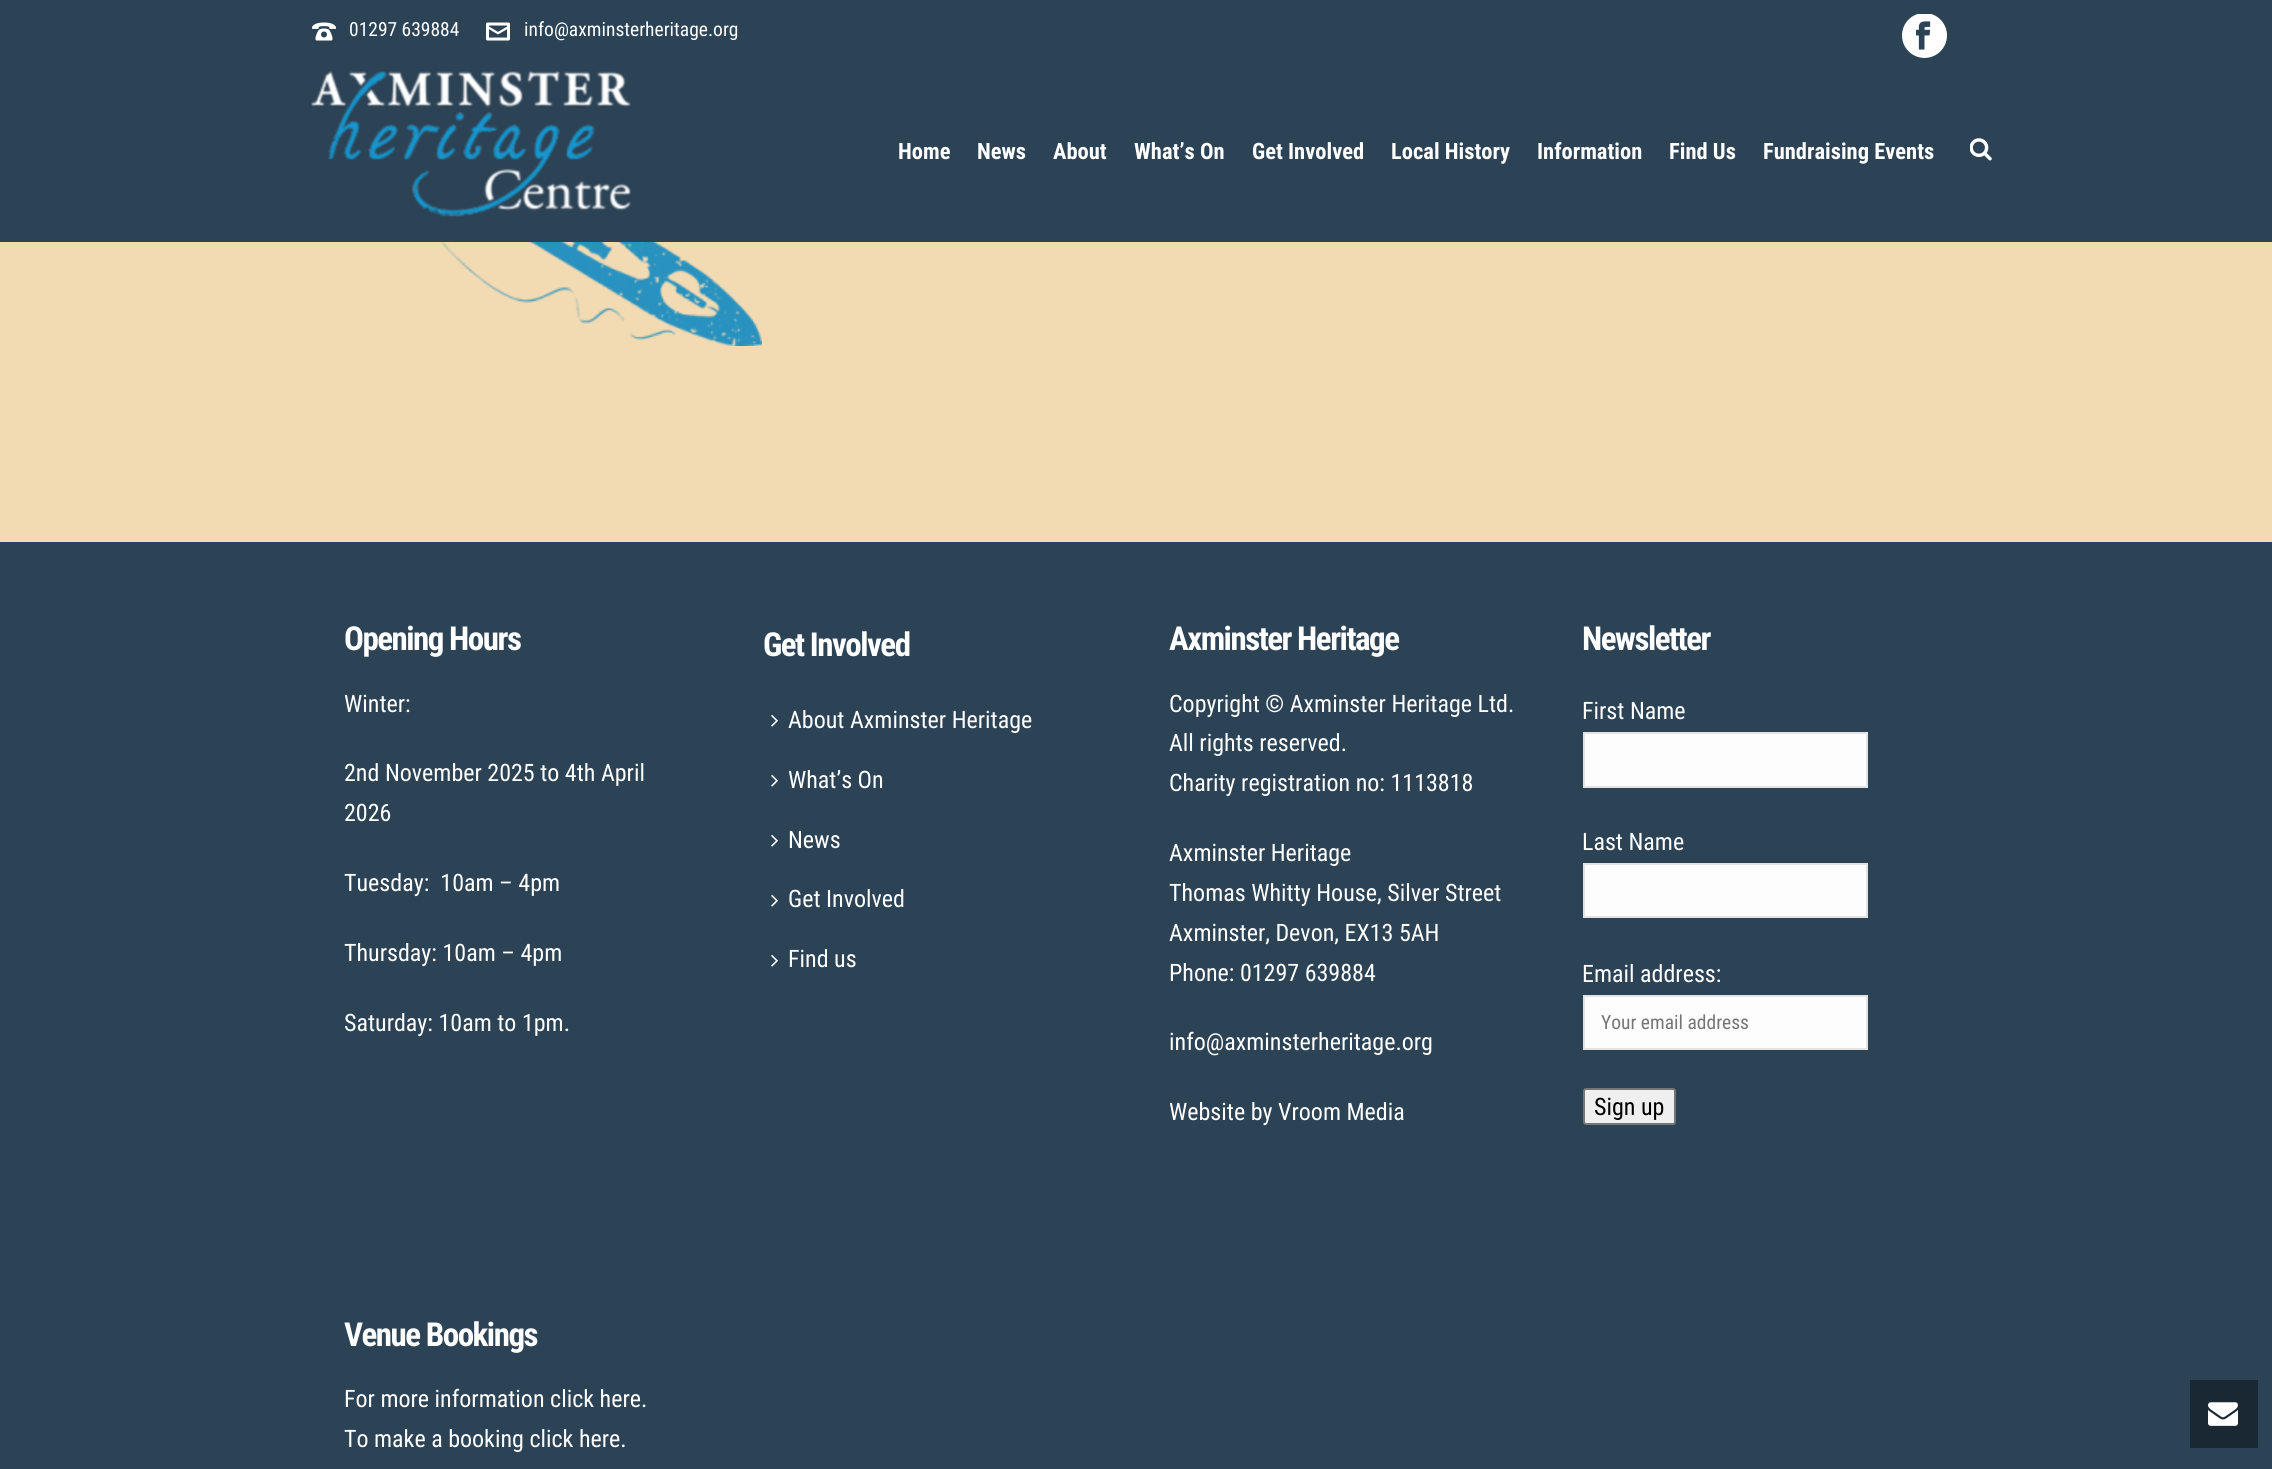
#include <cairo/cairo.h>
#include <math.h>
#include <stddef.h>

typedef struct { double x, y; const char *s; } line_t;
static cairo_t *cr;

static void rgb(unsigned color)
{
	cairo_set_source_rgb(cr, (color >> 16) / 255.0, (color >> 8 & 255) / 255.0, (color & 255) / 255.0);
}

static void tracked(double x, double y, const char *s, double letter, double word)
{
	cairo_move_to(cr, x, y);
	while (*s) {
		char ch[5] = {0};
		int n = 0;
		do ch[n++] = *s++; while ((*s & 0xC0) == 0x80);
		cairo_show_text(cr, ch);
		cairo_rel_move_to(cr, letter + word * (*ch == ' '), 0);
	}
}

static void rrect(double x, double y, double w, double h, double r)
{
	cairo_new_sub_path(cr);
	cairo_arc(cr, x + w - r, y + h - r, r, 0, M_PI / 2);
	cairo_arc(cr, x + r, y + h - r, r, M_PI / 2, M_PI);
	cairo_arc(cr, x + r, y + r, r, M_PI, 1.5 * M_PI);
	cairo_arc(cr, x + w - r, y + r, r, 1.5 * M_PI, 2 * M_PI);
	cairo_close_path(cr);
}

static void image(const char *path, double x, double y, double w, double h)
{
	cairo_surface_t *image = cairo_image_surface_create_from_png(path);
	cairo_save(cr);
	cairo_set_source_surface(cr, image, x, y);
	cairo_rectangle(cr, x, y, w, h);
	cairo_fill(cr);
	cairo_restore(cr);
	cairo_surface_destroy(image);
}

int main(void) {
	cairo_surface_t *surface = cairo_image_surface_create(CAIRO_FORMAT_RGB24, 2272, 1469);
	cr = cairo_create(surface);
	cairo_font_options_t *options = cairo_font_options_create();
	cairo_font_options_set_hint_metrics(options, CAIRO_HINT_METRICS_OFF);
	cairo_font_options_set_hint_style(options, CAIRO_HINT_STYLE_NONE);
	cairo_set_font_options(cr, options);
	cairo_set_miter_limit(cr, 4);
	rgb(0x2c4255);
	cairo_paint(cr);
	image("img/1.png", 312, 22, 24, 19);
	image("img/2.png", 486, 22, 24, 19);
	image("img/3.png", 1902, 14, 45, 44);
	image("img/4.png", 311, 71, 320, 146);
	image("img/5.png", 1970, 138, 22, 23);
	rgb(0xf2dab2);
	cairo_rectangle(cr, 0, 242, 2272, 300);
	cairo_fill(cr);
	image("img/6.png", 441, 242, 321, 104);
	image("img/7.png", 771, 715, 7, 12);
	image("img/7.png", 771, 775, 7, 12);
	image("img/7.png", 771, 835, 7, 12);
	image("img/7.png", 771, 895, 7, 12);
	image("img/7.png", 771, 955, 7, 12);
	rgb(0xfdfdfd);
	cairo_rectangle(cr, 1584, 733, 283, 54);
	cairo_fill_preserve(cr);
	rgb(0xe3e3e3);
	cairo_stroke(cr);
	rgb(0xfdfdfd);
	cairo_rectangle(cr, 1584, 864, 283, 53);
	cairo_fill_preserve(cr);
	rgb(0xe3e3e3);
	cairo_stroke(cr);
	rgb(0xfdfdfd);
	cairo_rectangle(cr, 1584, 996, 283, 53);
	cairo_fill_preserve(cr);
	rgb(0xe3e3e3);
	cairo_stroke(cr);
	rgb(0xefefef);
	rrect(1584, 1089, 91, 35, 2);
	cairo_fill_preserve(cr);
	rgb(0x767676);
	cairo_stroke(cr);
	rgb(0x1a2833);
	cairo_rectangle(cr, 2190, 1380, 68, 68);
	cairo_fill(cr);
	image("img/8.png", 2208, 1402, 30, 24);
	cairo_select_font_face(cr, "Roboto Condensed", CAIRO_FONT_SLANT_NORMAL, CAIRO_FONT_WEIGHT_NORMAL);
	cairo_set_font_size(cr, 19.5);
	rgb(0xffffff);
	cairo_move_to(cr, 349, 36);
	cairo_show_text(cr, "01297 639884");
	cairo_move_to(cr, 524, 36);
	cairo_show_text(cr, "info@axminsterheritage.org");
	cairo_select_font_face(cr, "Roboto Condensed", CAIRO_FONT_SLANT_NORMAL, CAIRO_FONT_WEIGHT_BOLD);
	cairo_set_font_size(cr, 22.5);
	{
		static const line_t items[] = {
			{898, 159, "Home"},
			{977, 159, "News"},
			{1053, 159, "About"},
			{1134, 159, "What’s On"},
			{1252, 159, "Get Involved"},
			{1391, 159, "Local History"},
			{1537, 159, "Information"},
			{1669, 159, "Find Us"},
			{1763, 159, "Fundraising Events"},
		};
		for (size_t i = 0; i < sizeof items / sizeof *items; i++) {
			cairo_move_to(cr, items[i].x, items[i].y);
			cairo_show_text(cr, items[i].s);
		}
	}
	cairo_set_font_size(cr, 33);
	tracked(344, 650, "Opening Hours", -1.5, 0);
	cairo_select_font_face(cr, "Roboto Condensed", CAIRO_FONT_SLANT_NORMAL, CAIRO_FONT_WEIGHT_NORMAL);
	cairo_set_font_size(cr, 24);
	{
		static const line_t items[] = {
			{344, 712, "Winter:"},
			{344, 781, "2nd November 2025 to 4th April"},
			{344, 821, "2026"},
			{344, 891, "Tuesday:  10am – 4pm"},
			{344, 961, "Thursday: 10am – 4pm"},
			{344, 1031, "Saturday: 10am to 1pm."},
		};
		for (size_t i = 0; i < sizeof items / sizeof *items; i++) {
			cairo_move_to(cr, items[i].x, items[i].y);
			cairo_show_text(cr, items[i].s);
		}
	}
	cairo_select_font_face(cr, "Roboto Condensed", CAIRO_FONT_SLANT_NORMAL, CAIRO_FONT_WEIGHT_BOLD);
	cairo_set_font_size(cr, 33);
	tracked(344, 1346, "Venue Bookings", -1.5, 0);
	cairo_select_font_face(cr, "Roboto Condensed", CAIRO_FONT_SLANT_NORMAL, CAIRO_FONT_WEIGHT_NORMAL);
	cairo_set_font_size(cr, 24);
	cairo_move_to(cr, 344, 1407);
	cairo_show_text(cr, "For more information click here.");
	cairo_move_to(cr, 344, 1447);
	cairo_show_text(cr, "To make a booking click here.");
	cairo_select_font_face(cr, "Roboto Condensed", CAIRO_FONT_SLANT_NORMAL, CAIRO_FONT_WEIGHT_BOLD);
	cairo_set_font_size(cr, 33);
	tracked(763, 656, "Get Involved", -1.5, 0);
	cairo_select_font_face(cr, "Roboto Condensed", CAIRO_FONT_SLANT_NORMAL, CAIRO_FONT_WEIGHT_NORMAL);
	cairo_set_font_size(cr, 24);
	{
		static const line_t items[] = {
			{788, 728, "About Axminster Heritage"},
			{788, 788, "What’s On"},
			{788, 848, "News"},
			{788, 907, "Get Involved"},
			{788, 967, "Find us"},
		};
		for (size_t i = 0; i < sizeof items / sizeof *items; i++) {
			cairo_move_to(cr, items[i].x, items[i].y);
			cairo_show_text(cr, items[i].s);
		}
	}
	cairo_select_font_face(cr, "Roboto Condensed", CAIRO_FONT_SLANT_NORMAL, CAIRO_FONT_WEIGHT_BOLD);
	cairo_set_font_size(cr, 33);
	tracked(1169, 650, "Axminster Heritage", -1.5, 0);
	cairo_select_font_face(cr, "Roboto Condensed", CAIRO_FONT_SLANT_NORMAL, CAIRO_FONT_WEIGHT_NORMAL);
	cairo_set_font_size(cr, 24);
	{
		static const line_t items[] = {
			{1169, 712, "Copyright © Axminster Heritage Ltd."},
			{1169, 751, "All rights reserved."},
			{1169, 791, "Charity registration no: 1113818"},
			{1169, 861, "Axminster Heritage"},
			{1169, 901, "Thomas Whitty House, Silver Street"},
			{1169, 941, "Axminster, Devon, EX13 5AH"},
			{1169, 981, "Phone: 01297 639884"},
			{1169, 1050, "info@axminsterheritage.org"},
			{1169, 1120, "Website by Vroom Media"},
		};
		for (size_t i = 0; i < sizeof items / sizeof *items; i++) {
			cairo_move_to(cr, items[i].x, items[i].y);
			cairo_show_text(cr, items[i].s);
		}
	}
	cairo_select_font_face(cr, "Roboto Condensed", CAIRO_FONT_SLANT_NORMAL, CAIRO_FONT_WEIGHT_BOLD);
	cairo_set_font_size(cr, 33);
	tracked(1582, 650, "Newsletter", -1.5, 0);
	cairo_select_font_face(cr, "Roboto Condensed", CAIRO_FONT_SLANT_NORMAL, CAIRO_FONT_WEIGHT_NORMAL);
	cairo_set_font_size(cr, 24);
	{
		static const line_t items[] = {
			{1582, 719, "First Name"},
			{1582, 850, "Last Name"},
			{1582, 982, "Email address:"},
		};
		for (size_t i = 0; i < sizeof items / sizeof *items; i++) {
			cairo_move_to(cr, items[i].x, items[i].y);
			cairo_show_text(cr, items[i].s);
		}
	}
	cairo_set_font_size(cr, 19.5);
	rgb(0x757575);
	cairo_move_to(cr, 1601, 1029);
	cairo_show_text(cr, "Your email address");
	cairo_set_font_size(cr, 24);
	rgb(0x000000);
	cairo_move_to(cr, 1594, 1115);
	cairo_show_text(cr, "Sign up");
	cairo_surface_write_to_png(surface, "page.png");
	cairo_font_options_destroy(options);
	cairo_destroy(cr);
	cairo_surface_destroy(surface);
	return 0;
}
